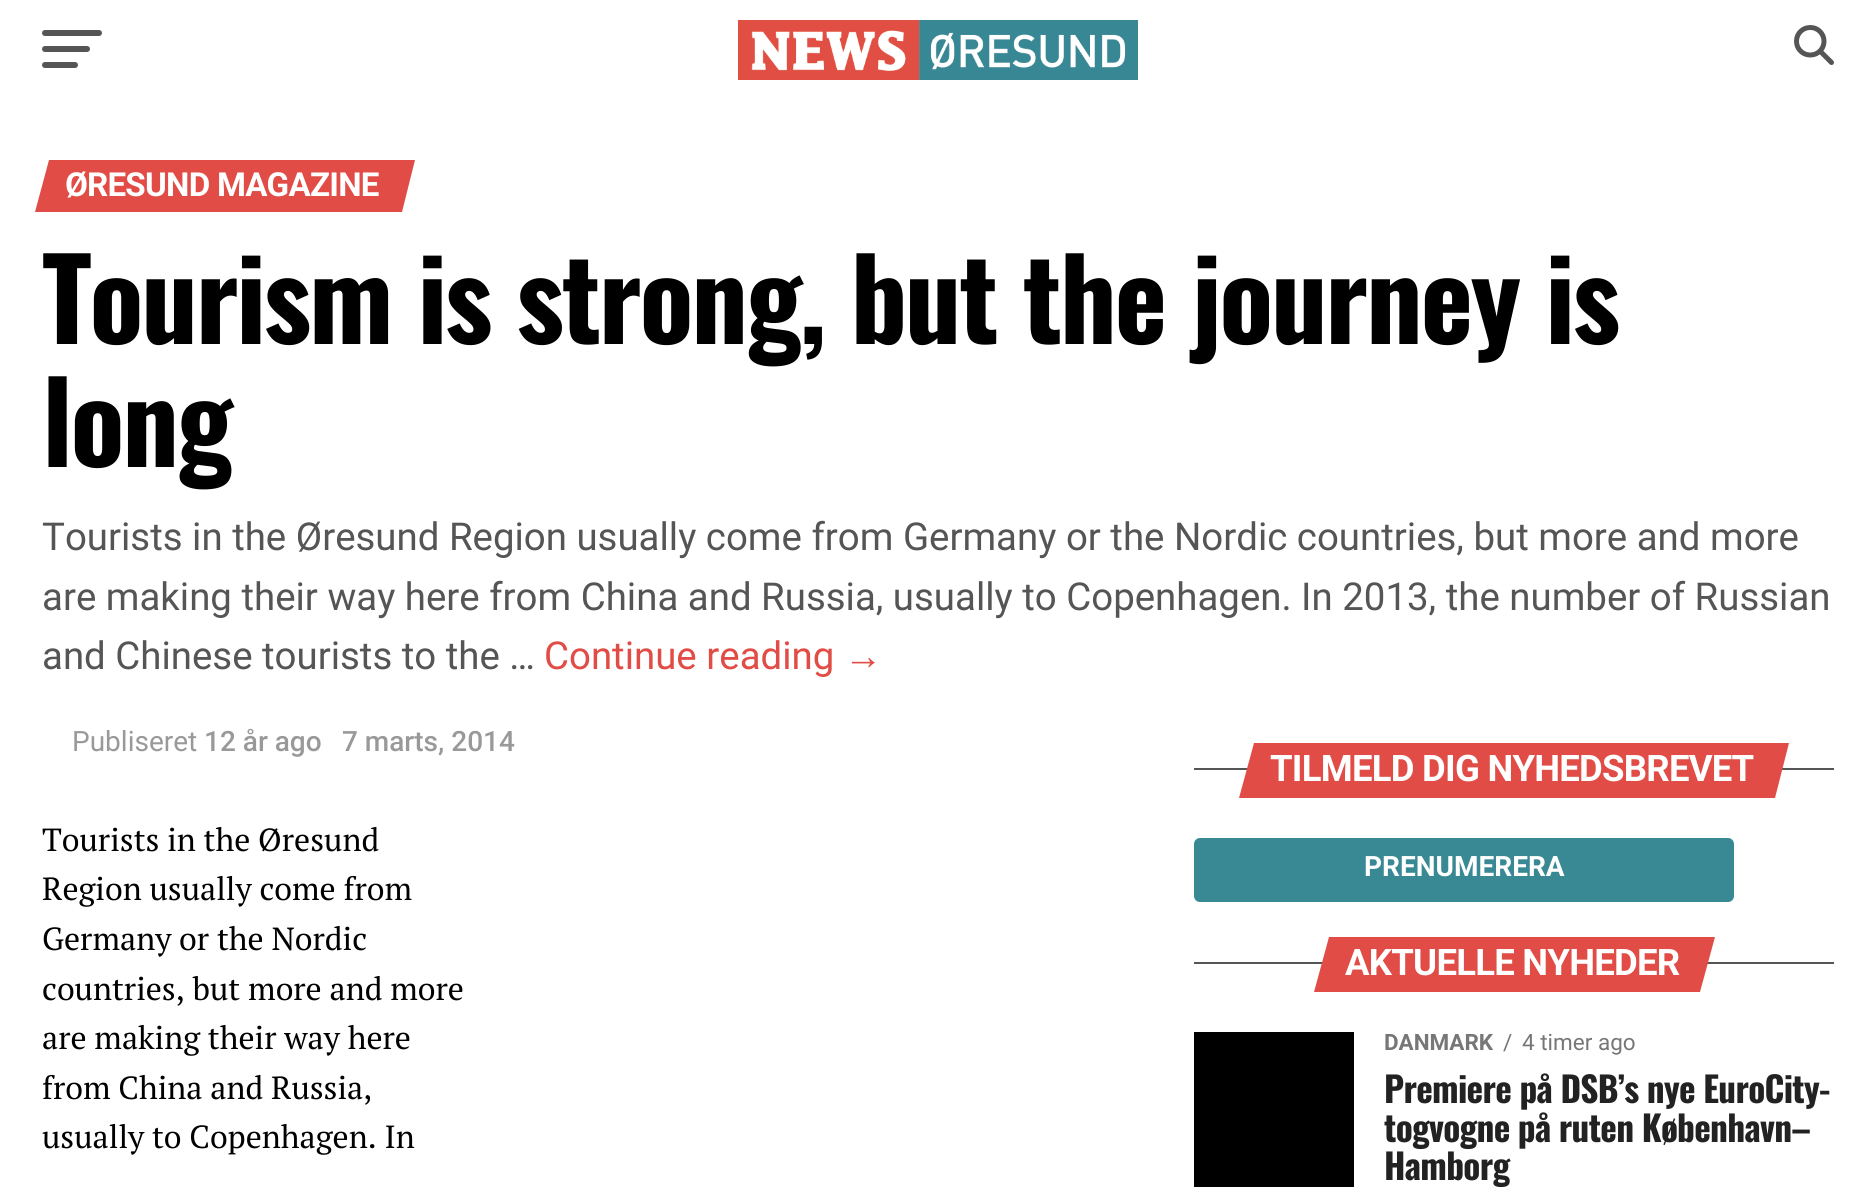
#include <cairo/cairo.h>
#include <math.h>
#include <stddef.h>

typedef struct { double x, y; const char *s; } line_t;
static cairo_t *cr;

static void rgb(unsigned color)
{
	cairo_set_source_rgb(cr, (color >> 16) / 255.0, (color >> 8 & 255) / 255.0, (color & 255) / 255.0);
}

static void tracked(double x, double y, const char *s, double letter, double word)
{
	cairo_move_to(cr, x, y);
	while (*s) {
		char ch[5] = {0};
		int n = 0;
		do ch[n++] = *s++; while ((*s & 0xC0) == 0x80);
		cairo_show_text(cr, ch);
		cairo_rel_move_to(cr, letter + word * (*ch == ' '), 0);
	}
}

static void rrect(double x, double y, double w, double h, double r)
{
	cairo_new_sub_path(cr);
	cairo_arc(cr, x + w - r, y + h - r, r, 0, M_PI / 2);
	cairo_arc(cr, x + r, y + h - r, r, M_PI / 2, M_PI);
	cairo_arc(cr, x + r, y + r, r, M_PI, 1.5 * M_PI);
	cairo_arc(cr, x + w - r, y + r, r, 1.5 * M_PI, 2 * M_PI);
	cairo_close_path(cr);
}

static void image(const char *path, double x, double y, double w, double h)
{
	cairo_surface_t *image = cairo_image_surface_create_from_png(path);
	cairo_save(cr);
	cairo_set_source_surface(cr, image, x, y);
	cairo_rectangle(cr, x, y, w, h);
	cairo_fill(cr);
	cairo_restore(cr);
	cairo_surface_destroy(image);
}

int main(void) {
	cairo_surface_t *surface = cairo_image_surface_create(CAIRO_FORMAT_RGB24, 1876, 1187);
	cr = cairo_create(surface);
	cairo_font_options_t *options = cairo_font_options_create();
	cairo_font_options_set_hint_metrics(options, CAIRO_HINT_METRICS_OFF);
	cairo_font_options_set_hint_style(options, CAIRO_HINT_STYLE_NONE);
	cairo_set_font_options(cr, options);
	cairo_set_miter_limit(cr, 4);
	rgb(0xffffff);
	cairo_paint(cr);
	rgb(0x555555);
	rrect(42, 30, 60, 6, 3);
	cairo_fill(cr);
	rrect(42, 46, 48, 6, 3);
	cairo_fill(cr);
	rrect(42, 62, 36, 6, 3);
	cairo_fill(cr);
	image("img/1.png", 738, 20, 400, 60);
	image("img/2.png", 1794, 25, 40, 40);
	rgb(0xe14d46);
	cairo_new_path(cr);
	cairo_move_to(cr, 49, 160);
	cairo_line_to(cr, 415, 160);
	cairo_line_to(cr, 402, 212);
	cairo_line_to(cr, 35, 212);
	cairo_close_path(cr);
	cairo_fill(cr);
	rgb(0x555555);
	cairo_rectangle(cr, 1194, 768, 640, 2);
	cairo_fill(cr);
	rgb(0xe14d46);
	cairo_new_path(cr);
	cairo_move_to(cr, 1254, 743);
	cairo_line_to(cr, 1789, 743);
	cairo_line_to(cr, 1775, 798);
	cairo_line_to(cr, 1239, 798);
	cairo_close_path(cr);
	cairo_fill(cr);
	rgb(0x398994);
	rrect(1194, 838, 540, 64, 6);
	cairo_fill(cr);
	rgb(0x555555);
	cairo_rectangle(cr, 1194, 962, 640, 2);
	cairo_fill(cr);
	rgb(0xe14d46);
	cairo_new_path(cr);
	cairo_move_to(cr, 1329, 937);
	cairo_line_to(cr, 1715, 937);
	cairo_line_to(cr, 1700, 992);
	cairo_line_to(cr, 1314, 992);
	cairo_close_path(cr);
	cairo_fill(cr);
	rgb(0x000000);
	cairo_rectangle(cr, 1194, 1032, 160, 155);
	cairo_fill(cr);
	cairo_select_font_face(cr, "Roboto", CAIRO_FONT_SLANT_NORMAL, CAIRO_FONT_WEIGHT_BOLD);
	cairo_set_font_size(cr, 33.1);
	rgb(0xffffff);
	tracked(65, 196, "ØRESUND MAGAZINE", -0.75, 0);
	cairo_select_font_face(cr, "Oswald", CAIRO_FONT_SLANT_NORMAL, CAIRO_FONT_WEIGHT_BOLD);
	cairo_set_font_size(cr, 112);
	rgb(0x000000);
	tracked(42, 344, "Tourism is strong, but the journey is", -2.25, 0);
	tracked(42, 467, "long", -2.25, 0);
	cairo_select_font_face(cr, "Roboto", CAIRO_FONT_SLANT_NORMAL, CAIRO_FONT_WEIGHT_NORMAL);
	cairo_set_font_size(cr, 38.4);
	rgb(0x555555);
	{
		static const line_t items[] = {
			{42, 550, "Tourists in the Øresund Region usually come from Germany or the Nordic countries, but more and more"},
			{42, 610, "are making their way here from China and Russia, usually to Copenhagen. In 2013, the number of Russian"},
			{42, 669, "and Chinese tourists to the …"},
		};
		for (size_t i = 0; i < sizeof items / sizeof *items; i++) {
			cairo_move_to(cr, items[i].x, items[i].y);
			cairo_show_text(cr, items[i].s);
		}
	}
	rgb(0xe14d46);
	cairo_move_to(cr, 544, 669);
	cairo_show_text(cr, "Continue reading");
	cairo_select_font_face(cr, "Liberation Sans", CAIRO_FONT_SLANT_NORMAL, CAIRO_FONT_WEIGHT_NORMAL);
	cairo_move_to(cr, 844, 669);
	cairo_show_text(cr, "→");
	cairo_select_font_face(cr, "Roboto", CAIRO_FONT_SLANT_NORMAL, CAIRO_FONT_WEIGHT_NORMAL);
	cairo_set_font_size(cr, 28);
	rgb(0x999999);
	cairo_move_to(cr, 72, 751);
	cairo_show_text(cr, "Publiseret");
	cairo_select_font_face(cr, "Roboto Medium", CAIRO_FONT_SLANT_NORMAL, CAIRO_FONT_WEIGHT_NORMAL);
	cairo_move_to(cr, 204, 751);
	cairo_show_text(cr, "12 år ago");
	cairo_move_to(cr, 342, 751);
	cairo_show_text(cr, "7 marts, 2014");
	cairo_select_font_face(cr, "PT Serif", CAIRO_FONT_SLANT_NORMAL, CAIRO_FONT_WEIGHT_NORMAL);
	cairo_set_font_size(cr, 32);
	rgb(0x000000);
	{
		static const line_t items[] = {
			{42, 851, "Tourists in the Øresund"},
			{42, 900, "Region usually come from"},
			{42, 950, "Germany or the Nordic"},
			{42, 1000, "countries, but more and more"},
			{42, 1049, "are making their way here"},
			{42, 1099, "from China and Russia,"},
			{42, 1148, "usually to Copenhagen. In"},
		};
		for (size_t i = 0; i < sizeof items / sizeof *items; i++) {
			cairo_move_to(cr, items[i].x, items[i].y);
			cairo_show_text(cr, items[i].s);
		}
	}
	cairo_select_font_face(cr, "Roboto", CAIRO_FONT_SLANT_NORMAL, CAIRO_FONT_WEIGHT_BOLD);
	cairo_set_font_size(cr, 36.5);
	rgb(0xffffff);
	tracked(1270, 781, "TILMELD DIG NYHEDSBREVET", -0.75, 0);
	cairo_set_font_size(cr, 28);
	cairo_move_to(cr, 1364, 876);
	cairo_show_text(cr, "PRENUMERERA");
	cairo_set_font_size(cr, 36.5);
	tracked(1345, 975, "AKTUELLE NYHEDER", -0.75, 0);
	cairo_set_font_size(cr, 22.5);
	rgb(0x777777);
	cairo_move_to(cr, 1384, 1050);
	cairo_show_text(cr, "DANMARK");
	cairo_select_font_face(cr, "Roboto", CAIRO_FONT_SLANT_NORMAL, CAIRO_FONT_WEIGHT_NORMAL);
	cairo_move_to(cr, 1503, 1050);
	cairo_show_text(cr, "/");
	cairo_move_to(cr, 1522, 1050);
	cairo_show_text(cr, "4 timer ago");
	cairo_select_font_face(cr, "Oswald", CAIRO_FONT_SLANT_NORMAL, CAIRO_FONT_WEIGHT_BOLD);
	cairo_set_font_size(cr, 35.25);
	rgb(0x222222);
	{
		static const line_t items[] = {
			{1384, 1103, "Premiere på DSB’s nye EuroCity-"},
			{1384, 1142, "togvogne på ruten København–"},
			{1384, 1180, "Hamborg"},
		};
		for (size_t i = 0; i < sizeof items / sizeof *items; i++) {
			tracked(items[i].x, items[i].y, items[i].s, -0.7, 0);
		}
	}
	cairo_surface_write_to_png(surface, "page.png");
	cairo_font_options_destroy(options);
	cairo_destroy(cr);
	cairo_surface_destroy(surface);
	return 0;
}
